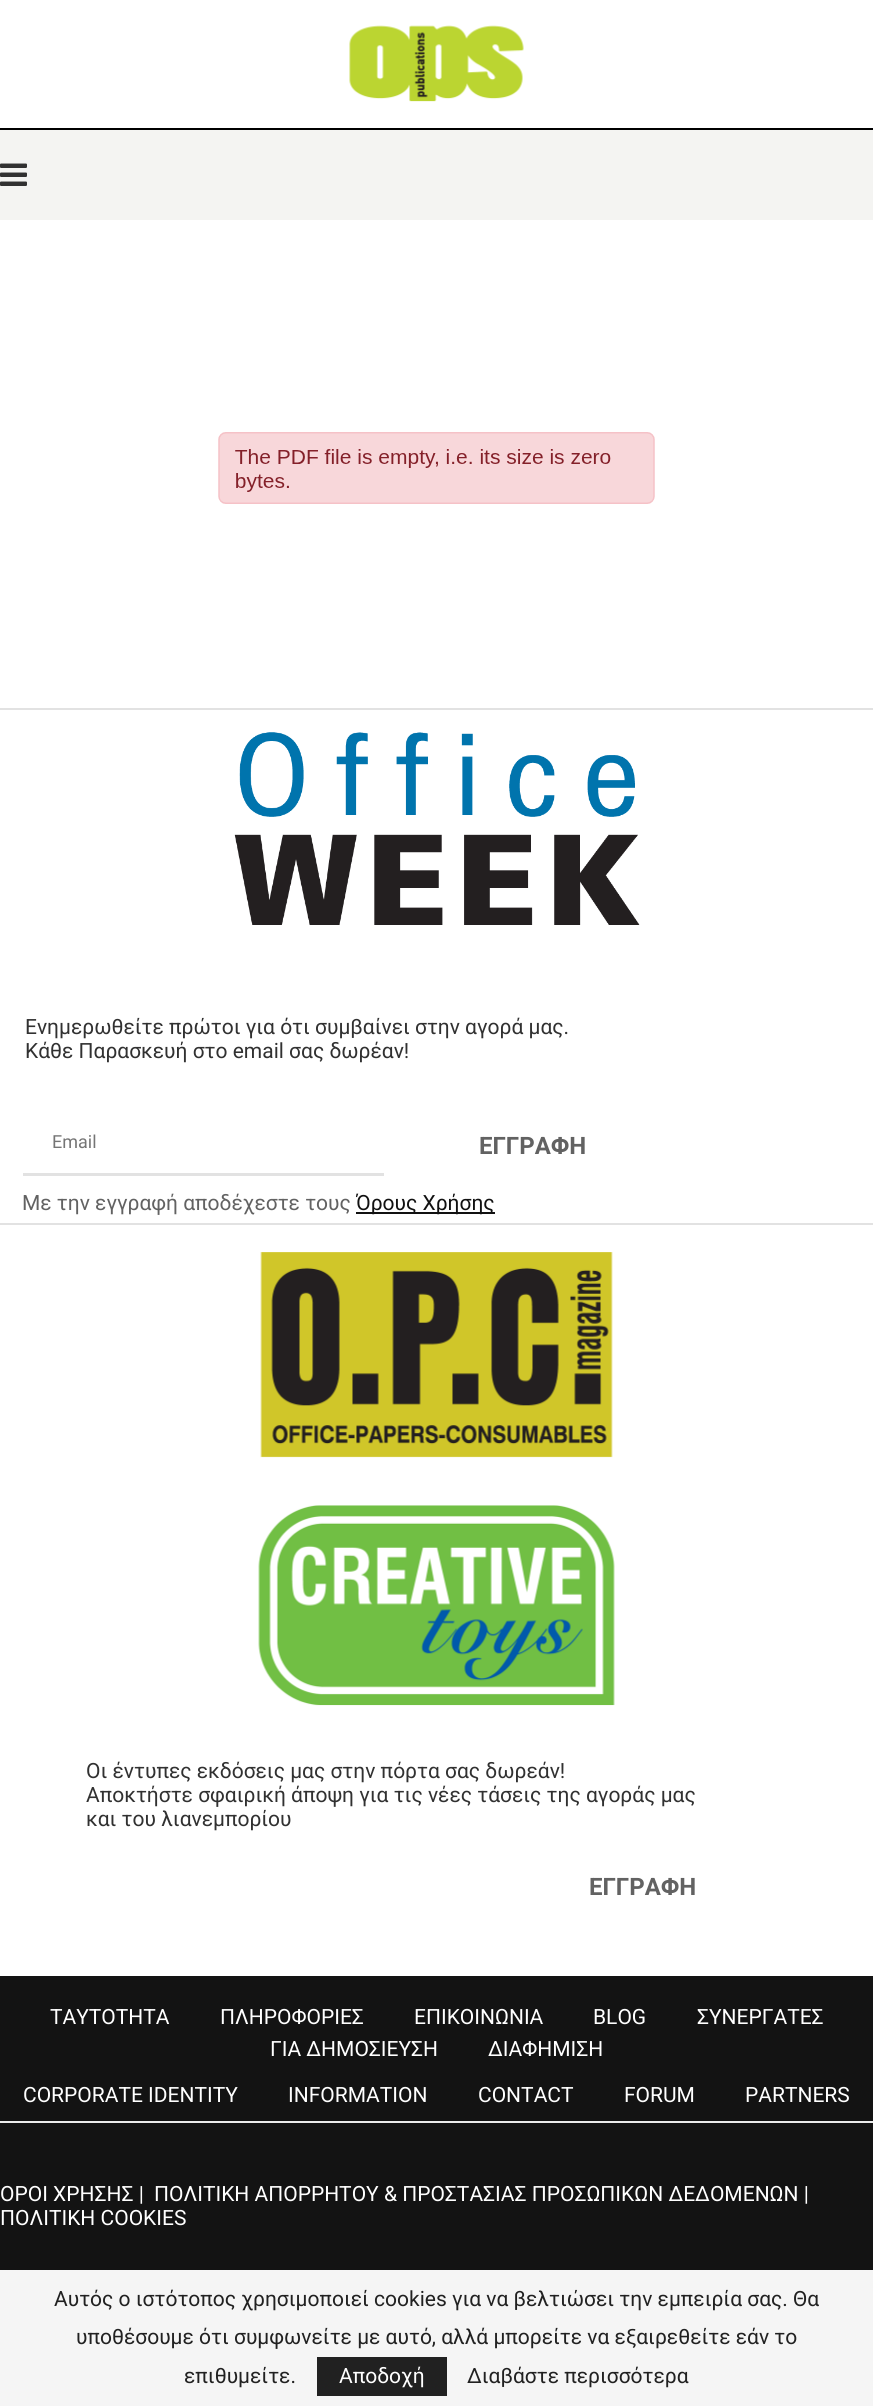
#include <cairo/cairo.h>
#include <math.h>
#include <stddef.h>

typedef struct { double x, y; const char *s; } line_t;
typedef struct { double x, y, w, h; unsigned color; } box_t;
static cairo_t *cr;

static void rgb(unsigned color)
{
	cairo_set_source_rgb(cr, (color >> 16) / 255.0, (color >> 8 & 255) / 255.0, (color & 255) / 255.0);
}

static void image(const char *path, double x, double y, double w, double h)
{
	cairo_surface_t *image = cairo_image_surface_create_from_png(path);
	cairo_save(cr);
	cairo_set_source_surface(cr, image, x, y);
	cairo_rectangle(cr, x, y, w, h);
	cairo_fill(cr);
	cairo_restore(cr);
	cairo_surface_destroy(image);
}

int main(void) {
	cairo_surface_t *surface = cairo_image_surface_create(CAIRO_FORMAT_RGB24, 873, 2406);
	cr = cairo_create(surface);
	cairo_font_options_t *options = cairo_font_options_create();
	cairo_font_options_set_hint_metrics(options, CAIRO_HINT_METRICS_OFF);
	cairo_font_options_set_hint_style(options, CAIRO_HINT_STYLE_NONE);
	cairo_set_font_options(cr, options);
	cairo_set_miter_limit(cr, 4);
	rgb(0xffffff);
	cairo_paint(cr);
	rgb(0x000000);
	cairo_rectangle(cr, 0, 128, 873, 2);
	cairo_fill(cr);
	image("img/1.png", 349, 25, 175, 77);
	rgb(0xf4f4f2);
	cairo_rectangle(cr, 0, 130, 873, 90);
	cairo_fill(cr);
	image("img/2.png", 0, 163, 27, 23);
	image("img/3.png", 218, 432, 437, 72);
	rgb(0xe2e2e2);
	cairo_rectangle(cr, 0, 708, 873, 2);
	cairo_fill(cr);
	cairo_rectangle(cr, 0, 1223, 873, 2);
	cairo_fill(cr);
	image("img/4.png", 234, 732, 406, 193);
	cairo_rectangle(cr, 23, 1173, 361, 3);
	cairo_fill(cr);
	rgb(0x111111);
	cairo_rectangle(cr, 356, 1212, 139, 2);
	cairo_fill(cr);
	image("img/5.png", 260, 1252, 353, 206);
	image("img/6.png", 258, 1505, 357, 201);
	{
		static const box_t items[] = {
			{0, 1976, 873, 145, 0x131313},
			{0, 2123, 873, 147, 0x131313},
			{0, 2121, 873, 2, 0xececec},
			{0, 2270, 873, 136, 0xf5f5f5},
			{317, 2357, 130, 39, 0x212121},
		};
		for (size_t i = 0; i < sizeof items / sizeof *items; i++) {
			rgb(items[i].color);
			cairo_rectangle(cr, items[i].x, items[i].y, items[i].w, items[i].h);
			cairo_fill(cr);
		}
	}
	cairo_select_font_face(cr, "Roboto", CAIRO_FONT_SLANT_NORMAL, CAIRO_FONT_WEIGHT_NORMAL);
	cairo_set_font_size(cr, 21);
	rgb(0x313131);
	cairo_move_to(cr, 25, 1034);
	cairo_show_text(cr, "Ενημερωθείτε πρώτοι για ότι συμβαίνει στην αγορά μας.");
	cairo_move_to(cr, 25, 1058);
	cairo_show_text(cr, "Κάθε Παρασκευή στο email σας δωρέαν!");
	cairo_set_font_size(cr, 18);
	rgb(0x757575);
	cairo_move_to(cr, 52, 1148);
	cairo_show_text(cr, "Email");
	cairo_select_font_face(cr, "Roboto", CAIRO_FONT_SLANT_NORMAL, CAIRO_FONT_WEIGHT_BOLD);
	cairo_set_font_size(cr, 24);
	rgb(0x626262);
	cairo_move_to(cr, 479, 1154);
	cairo_show_text(cr, "ΕΓΓΡΑΦΗ");
	cairo_select_font_face(cr, "Roboto", CAIRO_FONT_SLANT_NORMAL, CAIRO_FONT_WEIGHT_NORMAL);
	cairo_set_font_size(cr, 21);
	cairo_move_to(cr, 22, 1210);
	cairo_show_text(cr, "Με την εγγραφή αποδέχεστε τους");
	rgb(0x111111);
	cairo_move_to(cr, 356, 1210);
	cairo_show_text(cr, "Όρους Χρήσης");
	rgb(0x313131);
	{
		static const line_t items[] = {
			{86, 1778, "Οι έντυπες εκδόσεις μας στην πόρτα σας δωρεάν!"},
			{86, 1802, "Αποκτήστε σφαιρική άποψη για τις νέες τάσεις της αγοράς μας"},
			{86, 1826, "και του λιανεμπορίου"},
		};
		for (size_t i = 0; i < sizeof items / sizeof *items; i++) {
			cairo_move_to(cr, items[i].x, items[i].y);
			cairo_show_text(cr, items[i].s);
		}
	}
	cairo_select_font_face(cr, "Roboto", CAIRO_FONT_SLANT_NORMAL, CAIRO_FONT_WEIGHT_BOLD);
	cairo_set_font_size(cr, 24);
	rgb(0x626262);
	cairo_move_to(cr, 589, 1895);
	cairo_show_text(cr, "ΕΓΓΡΑΦΗ");
	cairo_select_font_face(cr, "Roboto", CAIRO_FONT_SLANT_NORMAL, CAIRO_FONT_WEIGHT_NORMAL);
	cairo_set_font_size(cr, 21);
	rgb(0xffffff);
	{
		static const line_t items[] = {
			{50, 2024, "ΤΑΥΤΟΤΗΤΑ"},
			{220, 2024, "ΠΛΗΡΟΦΟΡΙΕΣ"},
			{414, 2024, "ΕΠΙΚΟΙΝΩΝΙΑ"},
			{593, 2024, "BLOG"},
			{697, 2024, "ΣΥΝΕΡΓΑΤΕΣ"},
			{270, 2056, "ΓΙΑ ΔΗΜΟΣΙΕΥΣΗ"},
			{488, 2056, "ΔΙΑΦΗΜΙΣΗ"},
			{23, 2102, "CORPORATE IDENTITY"},
			{288, 2102, "INFORMATION"},
			{478, 2102, "CONTACT"},
			{624, 2102, "FORUM"},
			{745, 2102, "PARTNERS"},
			{0, 2201, "ΟΡΟΙ ΧΡΗΣΗΣ |"},
			{154, 2201, "ΠΟΛΙΤΙΚΗ ΑΠΟΡΡΗΤΟΥ & ΠΡΟΣΤΑΣΙΑΣ ΠΡΟΣΩΠΙΚΩΝ ΔΕΔΟΜΕΝΩΝ |"},
			{0, 2225, "ΠΟΛΙΤΙΚΗ COOKIES"},
		};
		for (size_t i = 0; i < sizeof items / sizeof *items; i++) {
			cairo_move_to(cr, items[i].x, items[i].y);
			cairo_show_text(cr, items[i].s);
		}
	}
	rgb(0x212121);
	{
		static const line_t items[] = {
			{54, 2306, "Αυτός ο ιστότοπος χρησιμοποιεί cookies για να βελτιώσει την εμπειρία σας. Θα"},
			{76, 2344, "υποθέσουμε ότι συμφωνείτε με αυτό, αλλά μπορείτε να εξαιρεθείτε εάν το"},
			{184, 2383, "επιθυμείτε."},
		};
		for (size_t i = 0; i < sizeof items / sizeof *items; i++) {
			cairo_move_to(cr, items[i].x, items[i].y);
			cairo_show_text(cr, items[i].s);
		}
	}
	rgb(0xffffff);
	cairo_move_to(cr, 339, 2383);
	cairo_show_text(cr, "Αποδοχή");
	rgb(0x212121);
	cairo_move_to(cr, 467, 2383);
	cairo_show_text(cr, "Διαβάστε περισσότερα");
	cairo_surface_write_to_png(surface, "page.png");
	cairo_font_options_destroy(options);
	cairo_destroy(cr);
	cairo_surface_destroy(surface);
	return 0;
}
